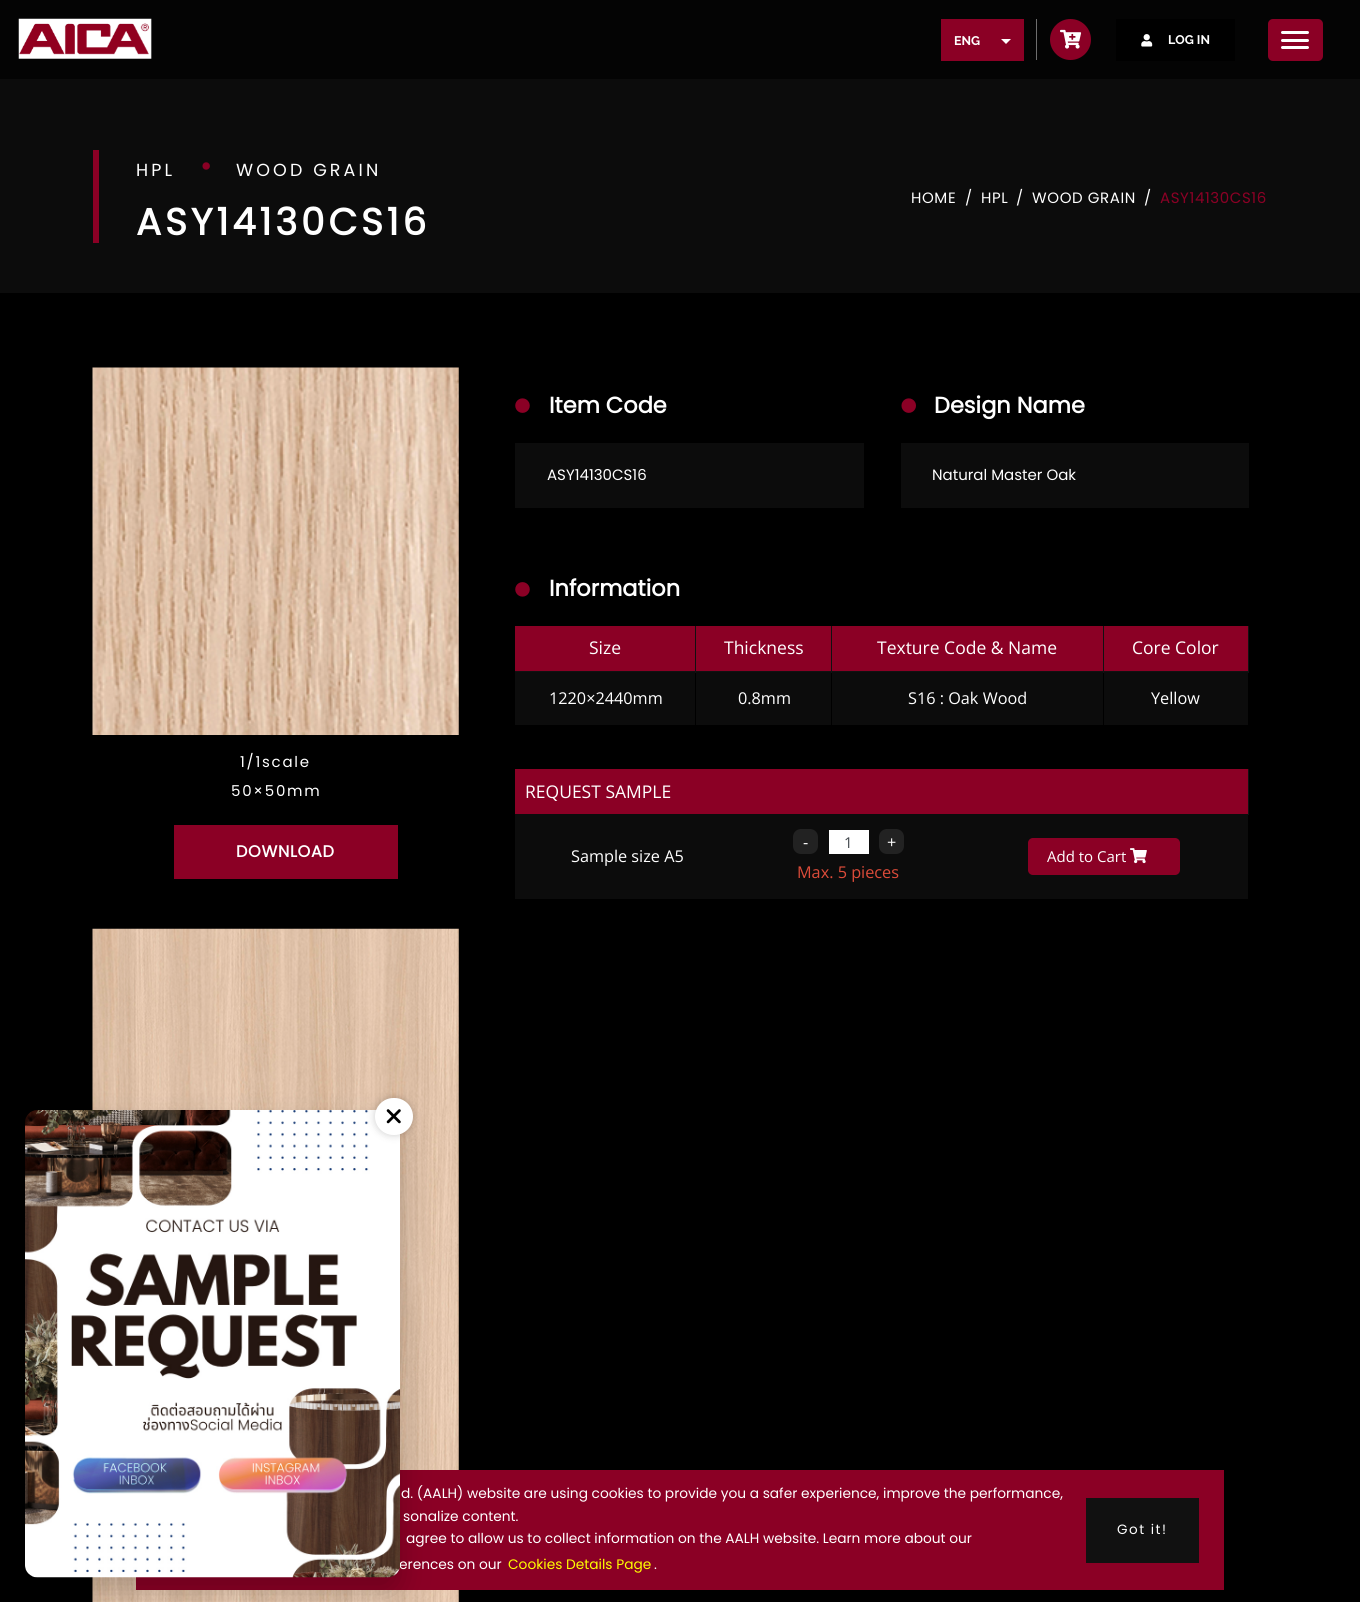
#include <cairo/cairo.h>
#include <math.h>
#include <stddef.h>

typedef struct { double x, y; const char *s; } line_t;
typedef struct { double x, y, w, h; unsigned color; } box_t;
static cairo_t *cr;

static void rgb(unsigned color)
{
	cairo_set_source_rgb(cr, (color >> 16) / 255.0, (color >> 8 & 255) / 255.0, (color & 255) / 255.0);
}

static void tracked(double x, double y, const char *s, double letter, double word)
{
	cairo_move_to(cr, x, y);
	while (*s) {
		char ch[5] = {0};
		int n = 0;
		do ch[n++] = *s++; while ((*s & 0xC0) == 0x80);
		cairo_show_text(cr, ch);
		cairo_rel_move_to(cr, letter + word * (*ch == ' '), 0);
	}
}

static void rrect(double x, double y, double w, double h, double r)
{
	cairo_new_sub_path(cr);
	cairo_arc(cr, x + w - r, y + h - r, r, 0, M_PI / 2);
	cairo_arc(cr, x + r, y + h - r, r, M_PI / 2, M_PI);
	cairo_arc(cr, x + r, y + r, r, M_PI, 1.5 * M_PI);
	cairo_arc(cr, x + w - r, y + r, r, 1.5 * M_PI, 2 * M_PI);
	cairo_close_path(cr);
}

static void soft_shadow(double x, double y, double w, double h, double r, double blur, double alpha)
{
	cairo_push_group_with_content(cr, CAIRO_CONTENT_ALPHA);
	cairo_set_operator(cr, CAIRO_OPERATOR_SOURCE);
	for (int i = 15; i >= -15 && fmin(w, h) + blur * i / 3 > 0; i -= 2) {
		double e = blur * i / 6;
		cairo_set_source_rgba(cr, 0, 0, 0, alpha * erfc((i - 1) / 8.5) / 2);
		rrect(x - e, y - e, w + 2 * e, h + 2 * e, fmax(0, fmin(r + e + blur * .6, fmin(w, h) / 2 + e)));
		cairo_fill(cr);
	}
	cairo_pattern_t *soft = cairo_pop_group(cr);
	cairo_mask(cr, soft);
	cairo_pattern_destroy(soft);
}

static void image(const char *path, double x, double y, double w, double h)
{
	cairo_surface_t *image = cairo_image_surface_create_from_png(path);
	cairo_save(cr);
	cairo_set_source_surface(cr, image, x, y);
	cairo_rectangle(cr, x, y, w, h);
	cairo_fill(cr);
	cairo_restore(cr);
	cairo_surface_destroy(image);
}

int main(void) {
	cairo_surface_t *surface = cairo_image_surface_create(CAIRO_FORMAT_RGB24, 1360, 1602);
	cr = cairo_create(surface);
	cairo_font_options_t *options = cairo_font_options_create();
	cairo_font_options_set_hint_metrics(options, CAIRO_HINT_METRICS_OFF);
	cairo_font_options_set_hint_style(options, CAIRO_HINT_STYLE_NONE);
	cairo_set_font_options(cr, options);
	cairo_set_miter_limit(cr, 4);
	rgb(0x0c0c0c);
	cairo_paint(cr);
	rgb(0x040404);
	cairo_rectangle(cr, 0, 0, 1360, 79);
	cairo_fill(cr);
	image("img/1.png", 18, 18, 134, 41);
	rgb(0x8b0025);
	cairo_rectangle(cr, 941, 19, 83, 42);
	cairo_fill(cr);
	rgb(0xffffff);
	cairo_new_path(cr);
	cairo_move_to(cr, 1001, 39);
	cairo_line_to(cr, 1011, 39);
	cairo_line_to(cr, 1006, 44);
	cairo_close_path(cr);
	cairo_fill(cr);
	rgb(0x6e6e6e);
	cairo_rectangle(cr, 1036, 19, 1, 41);
	cairo_fill(cr);
	rgb(0x8b0025);
	cairo_arc(cr, 1070.5, 39.5, 20.5, 0, 2 * M_PI);
	cairo_fill(cr);
	image("img/2.png", 1060, 29, 22, 20);
	rgb(0x000000);
	cairo_rectangle(cr, 1116, 19, 119, 42);
	cairo_fill(cr);
	image("img/3.png", 1141, 34, 12, 13);
	rgb(0x8b0025);
	rrect(1268, 19, 55, 42, 5);
	cairo_fill(cr);
	rgb(0xffffff);
	rrect(1281, 31, 28, 3, 1.5);
	cairo_fill(cr);
	rrect(1281, 39, 28, 3, 1.5);
	cairo_fill(cr);
	rrect(1281, 46, 28, 3, 1.5);
	cairo_fill(cr);
	rgb(0x8b0025);
	cairo_rectangle(cr, 93, 150, 6, 93);
	cairo_fill(cr);
	rgb(0x000000);
	cairo_rectangle(cr, 0, 293, 1360, 1309);
	cairo_fill(cr);
	image("img/4.png", 92, 367, 367, 368);
	rgb(0x8b0025);
	cairo_rectangle(cr, 174, 825, 224, 54);
	cairo_fill(cr);
	image("img/5.png", 92, 928, 367, 674);
	image("img/6.png", 515, 398, 15, 15);
	rgb(0x0c0c0c);
	cairo_rectangle(cr, 515, 443, 349, 65);
	cairo_fill(cr);
	image("img/7.png", 901, 398, 15, 15);
	cairo_rectangle(cr, 901, 443, 348, 65);
	cairo_fill(cr);
	image("img/8.png", 515, 582, 15, 15);
	{
		static const box_t items[] = {
			{515, 626, 180, 45, 0x8b0025},
			{515, 671, 734, 1, 0x111111},
			{695, 671, 1, 1, 0x000000},
			{695, 626, 1, 47, 0x111111},
			{696, 626, 407, 45, 0x8b0025},
			{696, 672, 407, 53, 0x0c0c0c},
			{831, 671, 1, 54, 0x000000},
			{831, 626, 1, 47, 0x111111},
			{1103, 671, 1, 1, 0x000000},
			{1103, 626, 1, 47, 0x111111},
			{1104, 626, 144, 45, 0x8b0025},
			{1248, 671, 1, 1, 0x000000},
			{1248, 626, 1, 47, 0x111111},
			{515, 672, 180, 53, 0x0c0c0c},
			{1104, 672, 144, 53, 0x0c0c0c},
			{515, 769, 733, 45, 0x8b0025},
			{1248, 769, 1, 46, 0x111111},
			{515, 814, 733, 85, 0x0c0c0c},
		};
		for (size_t i = 0; i < sizeof items / sizeof *items; i++) {
			rgb(items[i].color);
			cairo_rectangle(cr, items[i].x, items[i].y, items[i].w, items[i].h);
			cairo_fill(cr);
		}
	}
	rgb(0x222222);
	rrect(793, 829, 25, 25, 8);
	cairo_fill(cr);
	rgb(0xffffff);
	cairo_rectangle(cr, 829, 830, 40, 24);
	cairo_fill(cr);
	rgb(0x222222);
	rrect(879, 829, 25, 25, 8);
	cairo_fill(cr);
	rgb(0x8b0025);
	rrect(1028, 838, 152, 37, 5);
	cairo_fill(cr);
	image("img/9.png", 1130, 848, 17, 16);
	cairo_rectangle(cr, 136, 1470, 1088, 120);
	cairo_fill(cr);
	rgb(0x000000);
	soft_shadow(25, 1125, 375, 468, 13, 15, 0.2);
	rgb(0x111111);
	cairo_rectangle(cr, 1086, 1498, 113, 65);
	cairo_fill(cr);
	cairo_select_font_face(cr, "Raleway Thin", CAIRO_FONT_SLANT_NORMAL, CAIRO_FONT_WEIGHT_NORMAL);
	cairo_set_font_size(cr, 12.5);
	rgb(0xffffff);
	cairo_move_to(cr, 954, 45);
	cairo_show_text(cr, "ENG");
	cairo_move_to(cr, 1168, 44);
	cairo_show_text(cr, "LOG IN");
	cairo_select_font_face(cr, "Poppins", CAIRO_FONT_SLANT_NORMAL, CAIRO_FONT_WEIGHT_NORMAL);
	cairo_set_font_size(cr, 17.5);
	tracked(136, 176, "HPL", 3.1, 0);
	cairo_set_font_size(cr, 30);
	rgb(0x8b0025);
	tracked(200, 176, "•", 3.1, 0);
	cairo_set_font_size(cr, 17.5);
	rgb(0xffffff);
	tracked(236, 176, "WOOD GRAIN", 3.1, 0);
	cairo_select_font_face(cr, "Poppins", CAIRO_FONT_SLANT_NORMAL, CAIRO_FONT_WEIGHT_BOLD);
	cairo_set_font_size(cr, 37.5);
	tracked(136, 235, "ASY14130CS16", 3.75, 0);
	cairo_select_font_face(cr, "Poppins", CAIRO_FONT_SLANT_NORMAL, CAIRO_FONT_WEIGHT_NORMAL);
	cairo_set_font_size(cr, 15);
	{
		static const line_t items[] = {
			{911, 203, "HOME"},
			{965, 203, "/"},
			{981, 203, "HPL"},
			{1016, 203, "/"},
			{1032, 203, "WOOD GRAIN"},
			{1144, 203, "/"},
		};
		for (size_t i = 0; i < sizeof items / sizeof *items; i++) {
			tracked(items[i].x, items[i].y, items[i].s, 0.6, 0);
		}
	}
	rgb(0x8b0025);
	tracked(1160, 203, "ASY14130CS16", 0.6, 0);
	rgb(0xffffff);
	tracked(240, 767, "1/1scale", 1.75, 0);
	tracked(231, 796, "50×50mm", 1.75, 0);
	cairo_select_font_face(cr, "Poppins", CAIRO_FONT_SLANT_NORMAL, CAIRO_FONT_WEIGHT_BOLD);
	cairo_set_font_size(cr, 16.25);
	tracked(236, 857, "DOWNLOAD", 0.6, 0);
	cairo_set_font_size(cr, 22.5);
	cairo_move_to(cr, 549, 413);
	cairo_show_text(cr, "Item Code");
	cairo_select_font_face(cr, "Poppins", CAIRO_FONT_SLANT_NORMAL, CAIRO_FONT_WEIGHT_NORMAL);
	cairo_set_font_size(cr, 15);
	cairo_move_to(cr, 547, 480);
	cairo_show_text(cr, "ASY14130CS16");
	cairo_select_font_face(cr, "Poppins", CAIRO_FONT_SLANT_NORMAL, CAIRO_FONT_WEIGHT_BOLD);
	cairo_set_font_size(cr, 22.5);
	cairo_move_to(cr, 934, 413);
	cairo_show_text(cr, "Design Name");
	cairo_select_font_face(cr, "Poppins", CAIRO_FONT_SLANT_NORMAL, CAIRO_FONT_WEIGHT_NORMAL);
	cairo_set_font_size(cr, 15);
	cairo_move_to(cr, 932, 480);
	cairo_show_text(cr, "Natural Master Oak");
	cairo_select_font_face(cr, "Poppins", CAIRO_FONT_SLANT_NORMAL, CAIRO_FONT_WEIGHT_BOLD);
	cairo_set_font_size(cr, 22.5);
	cairo_move_to(cr, 549, 596);
	cairo_show_text(cr, "Information");
	cairo_select_font_face(cr, "Open Sans", CAIRO_FONT_SLANT_NORMAL, CAIRO_FONT_WEIGHT_NORMAL);
	cairo_set_font_size(cr, 17.5);
	{
		static const line_t items[] = {
			{589, 654, "Size"},
			{724, 654, "Thickness"},
			{877, 654, "Texture Code & Name"},
			{1132, 654, "Core Color"},
		};
		for (size_t i = 0; i < sizeof items / sizeof *items; i++) {
			cairo_move_to(cr, items[i].x, items[i].y);
			cairo_show_text(cr, items[i].s);
		}
	}
	cairo_set_font_size(cr, 16.25);
	{
		static const line_t items[] = {
			{549, 704, "1220×2440mm"},
			{738, 704, "0.8mm"},
			{908, 704, "S16 : Oak Wood"},
			{1151, 704, "Yellow"},
		};
		for (size_t i = 0; i < sizeof items / sizeof *items; i++) {
			cairo_move_to(cr, items[i].x, items[i].y);
			cairo_show_text(cr, items[i].s);
		}
	}
	cairo_set_font_size(cr, 17.5);
	cairo_move_to(cr, 525, 798);
	cairo_show_text(cr, "REQUEST SAMPLE");
	cairo_set_font_size(cr, 16.25);
	cairo_move_to(cr, 571, 862);
	cairo_show_text(cr, "Sample size A5");
	cairo_move_to(cr, 803, 848);
	cairo_show_text(cr, "-");
	cairo_set_font_size(cr, 15);
	rgb(0x43484d);
	cairo_move_to(cr, 844, 848);
	cairo_show_text(cr, "1");
	cairo_set_font_size(cr, 16.25);
	rgb(0xffffff);
	cairo_move_to(cr, 887, 848);
	cairo_show_text(cr, "+");
	rgb(0xdd4b39);
	cairo_move_to(cr, 797, 878);
	cairo_show_text(cr, "Max. 5 pieces");
	cairo_set_font_size(cr, 15);
	rgb(0xffffff);
	cairo_move_to(cr, 1047, 862);
	cairo_show_text(cr, "Add to Cart");
	cairo_select_font_face(cr, "Poppins", CAIRO_FONT_SLANT_NORMAL, CAIRO_FONT_WEIGHT_NORMAL);
	cairo_set_font_size(cr, 13.75);
	{
		static const line_t items[] = {
			{401, 1498, "d. (AALH) website are using cookies to provide you a safer experience, improve the performance,"},
			{403, 1521, "sonalize content."},
			{406, 1543, "agree to allow us to collect information on the AALH website. Learn more about our"},
			{399, 1569, "erences on our"},
		};
		for (size_t i = 0; i < sizeof items / sizeof *items; i++) {
			cairo_move_to(cr, items[i].x, items[i].y);
			cairo_show_text(cr, items[i].s);
		}
	}
	image("img/10.png", 25, 1110, 375, 468);
	rgb(0x000000);
	soft_shadow(375, 1098, 38, 37, 18.5, 4, 0.2);
	rgb(0xffffff);
	rrect(375, 1098, 38, 37, 18.5);
	cairo_fill(cr);
	image("img/11.png", 386, 1109, 15, 15);
	rgb(0xffff00);
	cairo_move_to(cr, 508, 1569);
	cairo_show_text(cr, "Cookies Details Page");
	rgb(0xffffff);
	cairo_move_to(cr, 654, 1569);
	cairo_show_text(cr, ".");
	cairo_set_font_size(cr, 13.5);
	tracked(1117, 1534, "Got it!", 1.5, 0);
	cairo_surface_write_to_png(surface, "page.png");
	cairo_font_options_destroy(options);
	cairo_destroy(cr);
	cairo_surface_destroy(surface);
	return 0;
}
